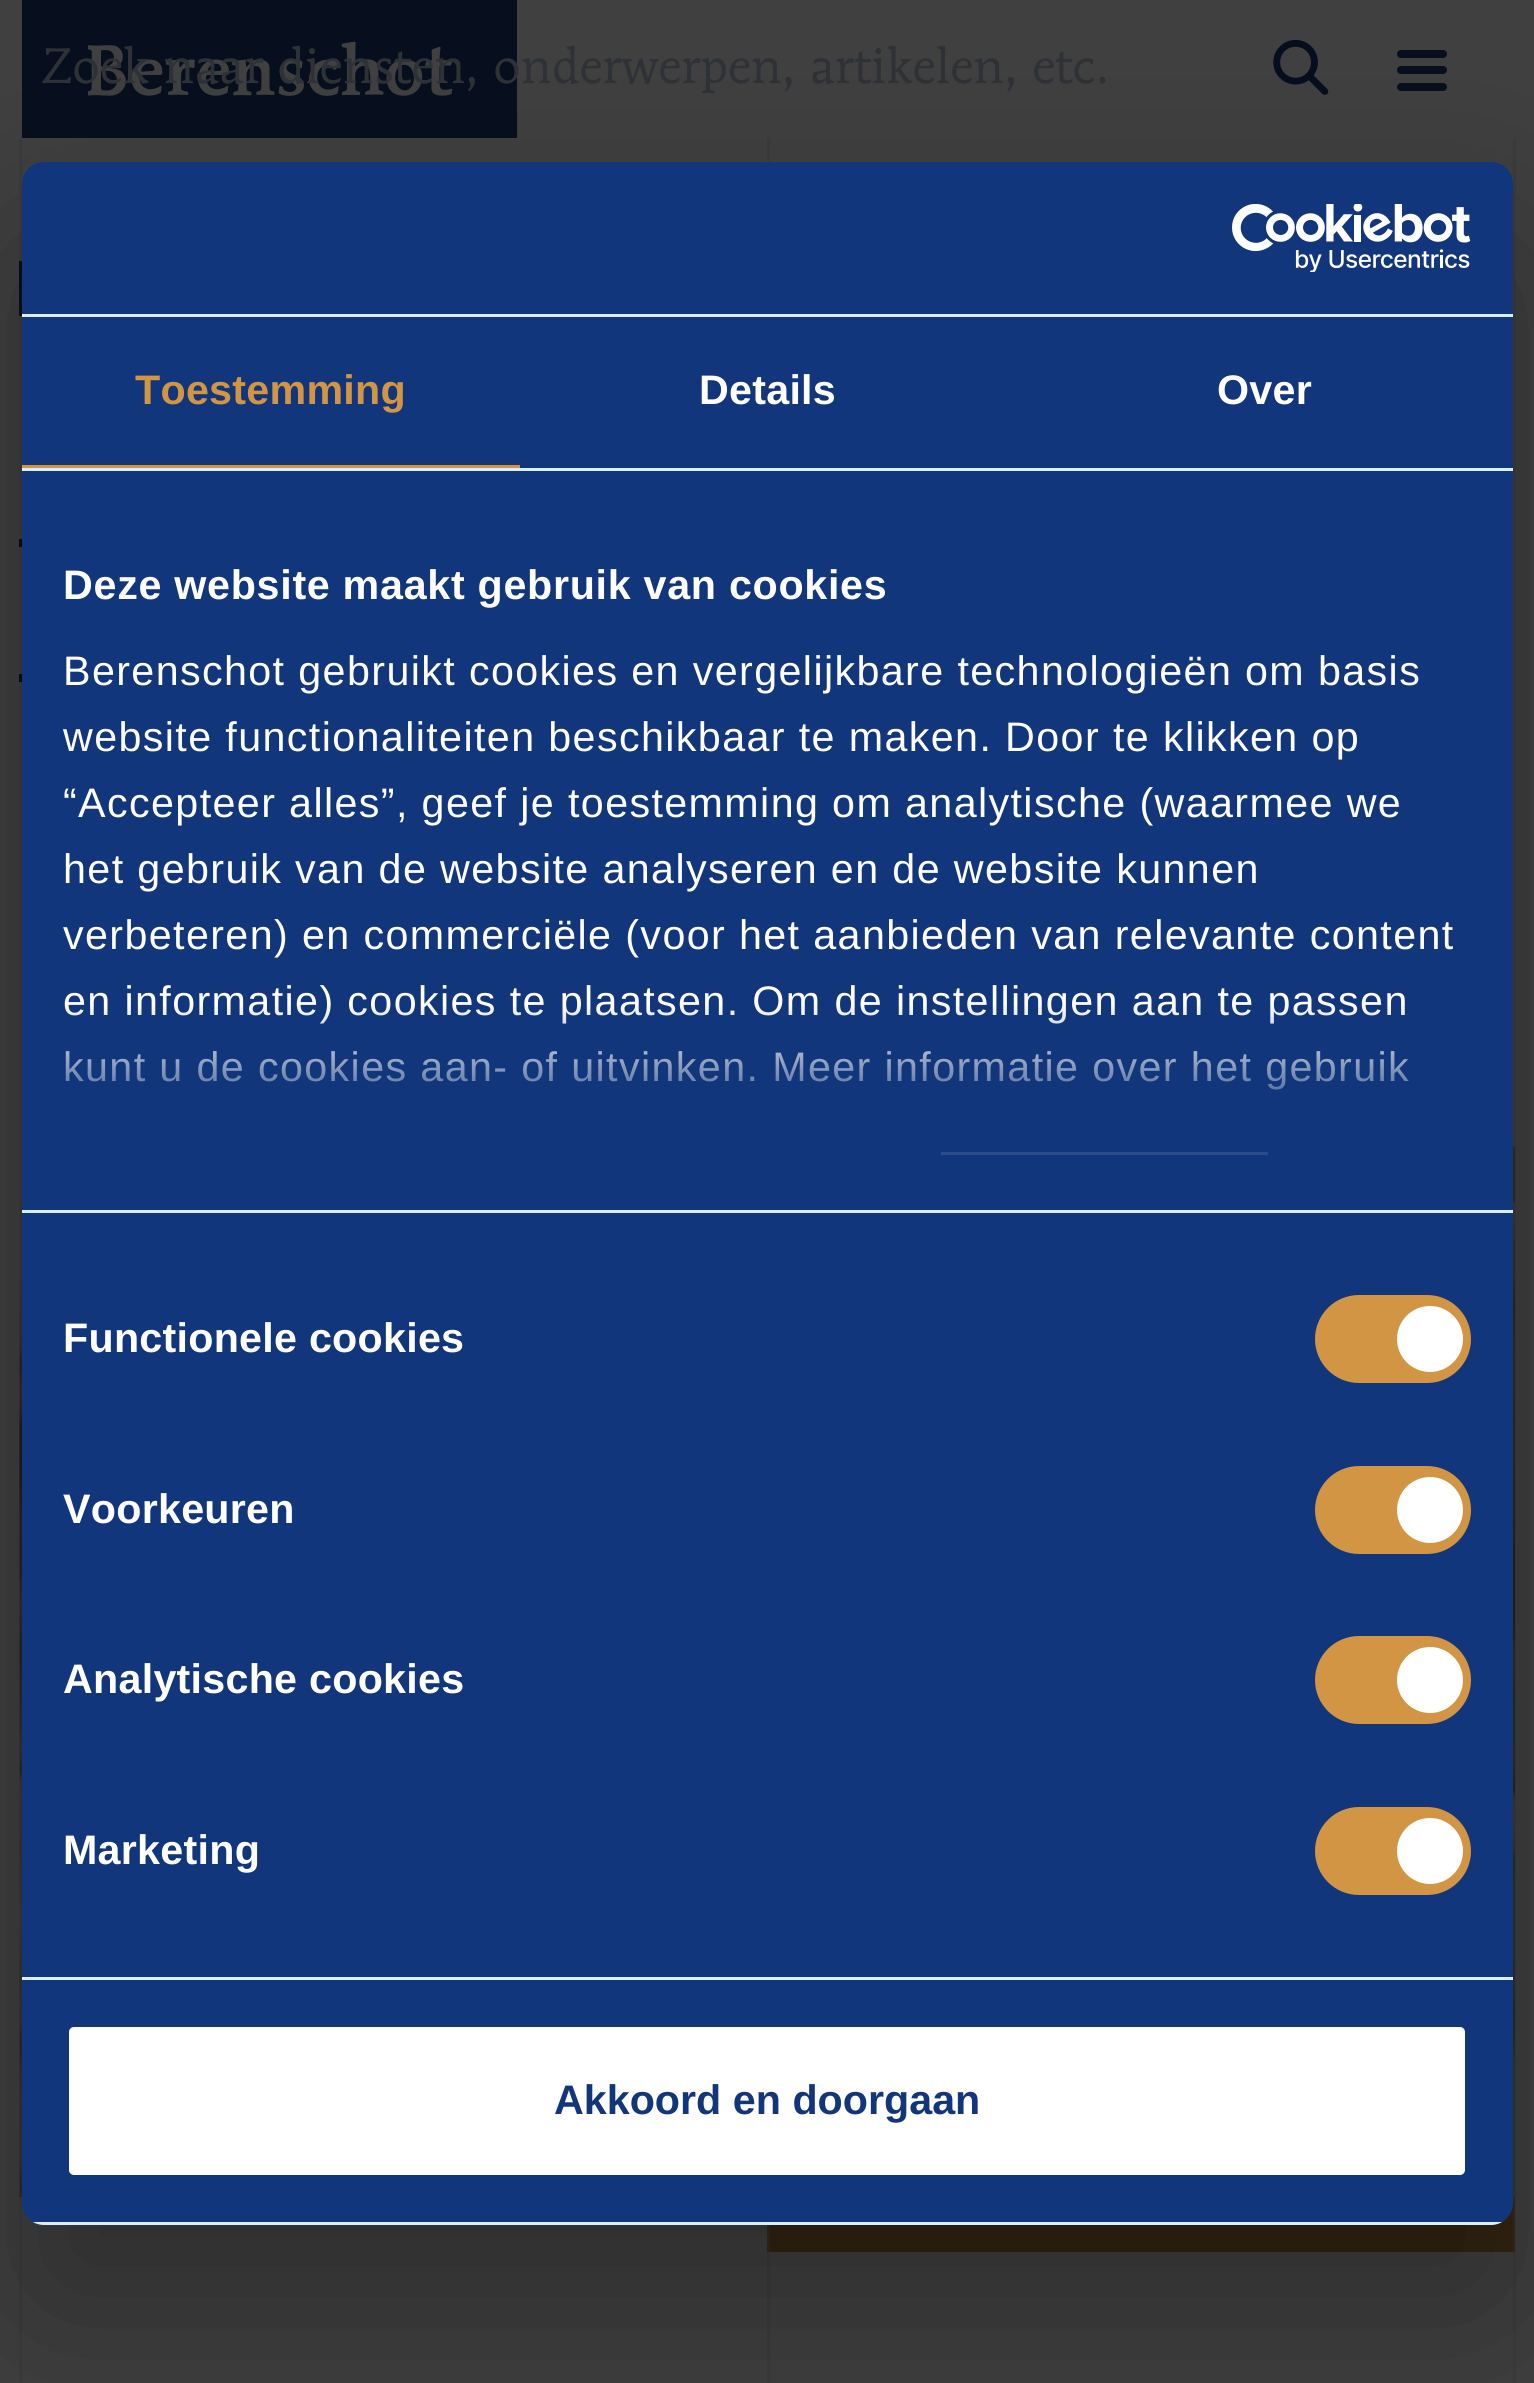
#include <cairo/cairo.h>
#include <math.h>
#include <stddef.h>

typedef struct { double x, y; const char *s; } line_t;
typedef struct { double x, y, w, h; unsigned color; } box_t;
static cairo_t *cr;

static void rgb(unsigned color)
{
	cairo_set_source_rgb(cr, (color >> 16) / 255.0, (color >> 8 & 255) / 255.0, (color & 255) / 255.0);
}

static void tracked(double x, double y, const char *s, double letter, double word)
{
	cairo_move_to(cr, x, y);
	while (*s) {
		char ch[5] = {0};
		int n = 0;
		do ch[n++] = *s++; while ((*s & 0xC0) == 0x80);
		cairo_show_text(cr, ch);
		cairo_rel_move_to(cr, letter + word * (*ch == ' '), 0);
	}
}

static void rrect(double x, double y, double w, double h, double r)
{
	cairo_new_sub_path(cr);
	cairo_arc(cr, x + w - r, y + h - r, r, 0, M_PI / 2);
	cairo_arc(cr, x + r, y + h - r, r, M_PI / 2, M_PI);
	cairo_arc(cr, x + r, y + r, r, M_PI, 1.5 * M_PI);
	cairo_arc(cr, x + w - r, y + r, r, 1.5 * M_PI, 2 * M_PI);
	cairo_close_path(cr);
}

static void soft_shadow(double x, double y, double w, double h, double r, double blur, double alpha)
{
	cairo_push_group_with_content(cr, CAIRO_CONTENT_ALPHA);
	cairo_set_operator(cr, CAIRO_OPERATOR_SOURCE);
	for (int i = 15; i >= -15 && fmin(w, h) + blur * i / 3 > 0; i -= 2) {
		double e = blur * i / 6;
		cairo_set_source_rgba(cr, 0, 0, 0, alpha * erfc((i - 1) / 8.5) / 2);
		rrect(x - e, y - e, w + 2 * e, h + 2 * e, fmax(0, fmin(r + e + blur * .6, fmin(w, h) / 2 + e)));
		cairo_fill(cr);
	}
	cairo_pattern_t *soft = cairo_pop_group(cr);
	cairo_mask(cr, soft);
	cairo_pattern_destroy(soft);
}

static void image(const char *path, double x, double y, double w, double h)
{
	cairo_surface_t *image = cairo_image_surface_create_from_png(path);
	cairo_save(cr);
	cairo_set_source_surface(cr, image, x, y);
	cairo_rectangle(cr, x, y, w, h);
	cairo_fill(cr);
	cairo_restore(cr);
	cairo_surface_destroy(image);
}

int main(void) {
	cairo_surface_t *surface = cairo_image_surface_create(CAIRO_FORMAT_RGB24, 1534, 2383);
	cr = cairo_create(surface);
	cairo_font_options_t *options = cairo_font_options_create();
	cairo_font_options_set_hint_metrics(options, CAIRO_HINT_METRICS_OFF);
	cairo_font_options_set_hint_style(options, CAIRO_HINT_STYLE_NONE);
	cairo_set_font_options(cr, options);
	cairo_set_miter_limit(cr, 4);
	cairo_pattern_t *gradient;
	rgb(0x404040);
	cairo_paint(cr);
	rgb(0x070e1e);
	cairo_rectangle(cr, 22, 0, 495, 138);
	cairo_fill(cr);
	image("img/1.png", 88, 41, 365, 55);
	image("img/2.png", 1273, 39, 56, 56);
	rrect(1397, 50, 50, 8, 4);
	cairo_fill(cr);
	rrect(1397, 66, 50, 8, 4);
	cairo_fill(cr);
	rrect(1397, 83, 50, 8, 4);
	cairo_fill(cr);
	rgb(0x342511);
	cairo_rectangle(cr, 1513, 1147, 2, 55);
	cairo_fill(cr);
	image("img/4.png", 19, 1201, 1497, 997);
	cairo_set_source_rgba(cr, 0.216, 0.216, 0.216, 0.4);
	cairo_rectangle(cr, 19, 138, 3, 2245);
	cairo_fill(cr);
	rgb(0x342511);
	cairo_rectangle(cr, 767, 2197, 748, 55);
	cairo_fill(cr);
	cairo_set_source_rgba(cr, 0.216, 0.216, 0.216, 0.4);
	cairo_rectangle(cr, 1513, 138, 3, 2245);
	cairo_fill(cr);
	cairo_rectangle(cr, 767, 138, 3, 2245);
	cairo_fill(cr);
	cairo_rectangle(cr, 20.5, 262.5, 52, 52);
	rgb(0x070e1e);
	cairo_set_line_width(cr, 3);
	cairo_stroke(cr);
	cairo_rectangle(cr, 19, 539, 3, 8);
	cairo_fill(cr);
	cairo_rectangle(cr, 19, 674, 3, 8);
	cairo_fill(cr);
	rgb(0x000000);
	soft_shadow(22, 250, 1491, 2063, 22, 93.5, 0.3);
	rgb(0x12367b);
	rrect(22, 162, 1491, 2063, 22);
	cairo_fill(cr);
	rgb(0xd9f0fa);
	cairo_rectangle(cr, 22, 314, 1491, 3);
	cairo_fill(cr);
	image("img/3.png", 1232, 204, 239, 68);
	{
		static const box_t items[] = {
			{22, 468, 1491, 3, 0xd9f0fa},
			{22, 465, 498, 3, 0xd19544},
			{22, 1210, 1491, 3, 0xd9f0fa},
			{941, 1152, 327, 3, 0xffffff},
			{22, 1977, 1491, 3, 0xd9f0fa},
		};
		for (size_t i = 0; i < sizeof items / sizeof *items; i++) {
			rgb(items[i].color);
			cairo_rectangle(cr, items[i].x, items[i].y, items[i].w, items[i].h);
			cairo_fill(cr);
		}
	}
	rgb(0xd19544);
	rrect(1315, 1295, 156, 88, 44);
	cairo_fill(cr);
	rgb(0xffffff);
	cairo_arc(cr, 1430, 1339, 33, 0, 2 * M_PI);
	cairo_fill(cr);
	rgb(0xd19544);
	rrect(1315, 1466, 156, 88, 44);
	cairo_fill(cr);
	rgb(0xffffff);
	cairo_arc(cr, 1430, 1510, 33, 0, 2 * M_PI);
	cairo_fill(cr);
	rgb(0xd19544);
	rrect(1315, 1636, 156, 88, 44);
	cairo_fill(cr);
	rgb(0xffffff);
	cairo_arc(cr, 1430, 1680, 33, 0, 2 * M_PI);
	cairo_fill(cr);
	rgb(0xd19544);
	rrect(1315, 1807, 156, 88, 44);
	cairo_fill(cr);
	rgb(0xffffff);
	cairo_arc(cr, 1430, 1851, 33, 0, 2 * M_PI);
	cairo_fill(cr);
	cairo_save(cr);
	rrect(22, 162, 1491, 2063, 22);
	cairo_clip(cr);
	rgb(0xd9f0fa);
	cairo_rectangle(cr, 33, 2222, 1469, 3);
	cairo_fill(cr);
	cairo_restore(cr);
	rrect(66, 2024, 1402, 154, 8);
	cairo_fill_preserve(cr);
	rgb(0x12367b);
	cairo_set_line_width(cr, 6);
	cairo_stroke(cr);
	cairo_select_font_face(cr, "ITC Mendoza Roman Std", CAIRO_FONT_SLANT_NORMAL, CAIRO_FONT_WEIGHT_NORMAL);
	cairo_set_font_size(cr, 49.5);
	rgb(0x2e3135);
	cairo_move_to(cr, 41, 83);
	cairo_show_text(cr, "Zoek naar diensten, onderwerpen, artikelen, etc.");
	cairo_select_font_face(cr, "Liberation Sans", CAIRO_FONT_SLANT_NORMAL, CAIRO_FONT_WEIGHT_BOLD);
	cairo_set_font_size(cr, 41.25);
	rgb(0xd19544);
	tracked(135, 404, "Toestemming", 0.25, 0);
	rgb(0xffffff);
	tracked(699, 404, "Details", 0.25, 0);
	tracked(1217, 404, "Over", 0.25, 0);
	tracked(63, 599, "Deze website maakt gebruik van cookies", 0.7, 0);
	cairo_select_font_face(cr, "Liberation Sans", CAIRO_FONT_SLANT_NORMAL, CAIRO_FONT_WEIGHT_NORMAL);
	{
		static const line_t items[] = {
			{63, 685, "Berenschot gebruikt cookies en vergelijkbare technologieën om basis"},
			{63, 751, "website functionaliteiten beschikbaar te maken. Door te klikken op"},
			{63, 817, "“Accepteer alles”, geef je toestemming om analytische (waarmee we"},
			{63, 883, "het gebruik van de website analyseren en de website kunnen"},
			{63, 949, "verbeteren) en commerciële (voor het aanbieden van relevante content"},
			{63, 1015, "en informatie) cookies te plaatsen. Om de instellingen aan te passen"},
			{63, 1081, "kunt u de cookies aan- of uitvinken. Meer informatie over het gebruik"},
		};
		for (size_t i = 0; i < sizeof items / sizeof *items; i++) {
			tracked(items[i].x, items[i].y, items[i].s, 1.38, 0);
		}
	}
	gradient = cairo_pattern_create_linear(749, 1209, 749, 1003);
	cairo_pattern_add_color_stop_rgba(gradient, 0, 0.071, 0.212, 0.482, 1);
	cairo_pattern_add_color_stop_rgba(gradient, 0.5, 0.071, 0.212, 0.482, 0.8);
	cairo_pattern_add_color_stop_rgba(gradient, 1, 0.071, 0.212, 0.482, 0);
	cairo_set_source(cr, gradient);
	cairo_pattern_destroy(gradient);
	cairo_rectangle(cr, 65, 1006, 1344, 149);
	cairo_fill(cr);
	cairo_select_font_face(cr, "Liberation Sans", CAIRO_FONT_SLANT_NORMAL, CAIRO_FONT_WEIGHT_BOLD);
	rgb(0xffffff);
	{
		static const line_t items[] = {
			{63, 1352, "Functionele cookies"},
			{63, 1523, "Voorkeuren"},
			{63, 1693, "Analytische cookies"},
			{63, 1864, "Marketing"},
		};
		for (size_t i = 0; i < sizeof items / sizeof *items; i++) {
			tracked(items[i].x, items[i].y, items[i].s, 0.25, 0);
		}
	}
	rgb(0x12367b);
	cairo_move_to(cr, 554, 2114);
	cairo_show_text(cr, "Akkoord en doorgaan");
	cairo_surface_write_to_png(surface, "page.png");
	cairo_font_options_destroy(options);
	cairo_destroy(cr);
	cairo_surface_destroy(surface);
	return 0;
}
